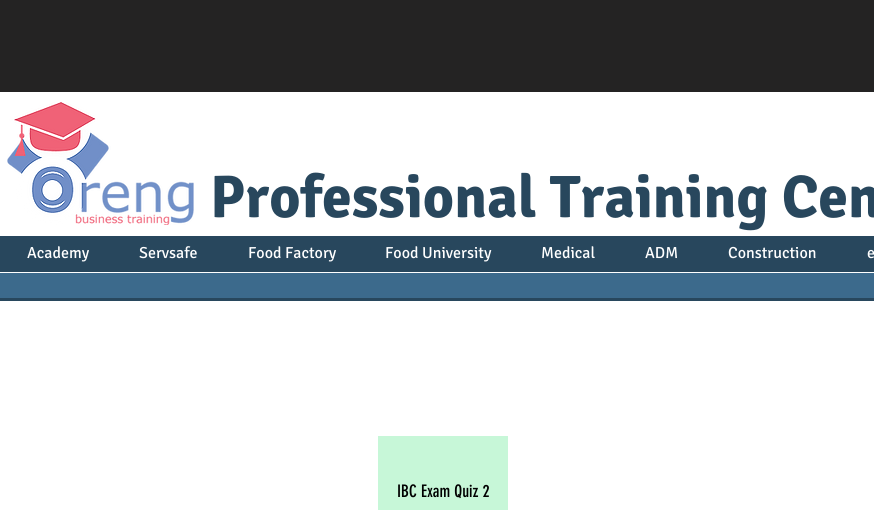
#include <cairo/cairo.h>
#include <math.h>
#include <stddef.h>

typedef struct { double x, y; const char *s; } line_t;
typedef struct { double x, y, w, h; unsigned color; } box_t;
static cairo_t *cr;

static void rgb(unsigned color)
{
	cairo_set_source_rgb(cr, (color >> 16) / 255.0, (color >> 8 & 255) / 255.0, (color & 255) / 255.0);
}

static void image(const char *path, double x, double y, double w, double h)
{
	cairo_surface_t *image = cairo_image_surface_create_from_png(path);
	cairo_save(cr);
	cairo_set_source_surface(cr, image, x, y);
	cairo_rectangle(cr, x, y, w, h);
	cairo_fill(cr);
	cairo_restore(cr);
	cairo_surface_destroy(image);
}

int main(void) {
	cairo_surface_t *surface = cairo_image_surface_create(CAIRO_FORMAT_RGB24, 874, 510);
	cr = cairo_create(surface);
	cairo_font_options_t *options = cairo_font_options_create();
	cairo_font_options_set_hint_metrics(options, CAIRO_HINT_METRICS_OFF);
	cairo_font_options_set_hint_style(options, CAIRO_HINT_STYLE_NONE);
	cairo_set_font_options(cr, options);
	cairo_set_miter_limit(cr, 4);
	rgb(0xffffff);
	cairo_paint(cr);
	rgb(0x242323);
	cairo_rectangle(cr, 0, 0, 874, 92);
	cairo_fill(cr);
	image("img/1.png", 7, 102, 187, 123);
	{
		static const box_t items[] = {
			{0, 236, 874, 36, 0x28475d},
			{0, 273, 874, 25, 0x3c6a8c},
			{0, 298, 874, 3, 0x28475d},
			{378, 436, 130, 74, 0xc7f7d8},
		};
		for (size_t i = 0; i < sizeof items / sizeof *items; i++) {
			rgb(items[i].color);
			cairo_rectangle(cr, items[i].x, items[i].y, items[i].w, items[i].h);
			cairo_fill(cr);
		}
	}
	cairo_select_font_face(cr, "Signika", CAIRO_FONT_SLANT_NORMAL, CAIRO_FONT_WEIGHT_BOLD);
	cairo_set_font_size(cr, 60);
	rgb(0x28475d);
	cairo_move_to(cr, 210, 217);
	cairo_show_text(cr, "Professional Training Cen");
	cairo_select_font_face(cr, "Signika", CAIRO_FONT_SLANT_NORMAL, CAIRO_FONT_WEIGHT_NORMAL);
	cairo_set_font_size(cr, 16);
	rgb(0xffffff);
	{
		static const line_t items[] = {
			{27, 258, "Academy"},
			{139, 258, "Servsafe"},
			{248, 258, "Food Factory"},
			{385, 258, "Food University"},
			{541, 258, "Medical"},
			{645, 258, "ADM"},
			{728, 258, "Construction"},
			{867, 258, "e"},
		};
		for (size_t i = 0; i < sizeof items / sizeof *items; i++) {
			cairo_move_to(cr, items[i].x, items[i].y);
			cairo_show_text(cr, items[i].s);
		}
	}
	cairo_select_font_face(cr, "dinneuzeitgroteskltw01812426", CAIRO_FONT_SLANT_NORMAL, CAIRO_FONT_WEIGHT_NORMAL);
	cairo_set_font_size(cr, 17);
	rgb(0x000000);
	cairo_move_to(cr, 397, 497);
	cairo_show_text(cr, "IBC Exam Quiz 2");
	cairo_surface_write_to_png(surface, "page.png");
	cairo_font_options_destroy(options);
	cairo_destroy(cr);
	cairo_surface_destroy(surface);
	return 0;
}
